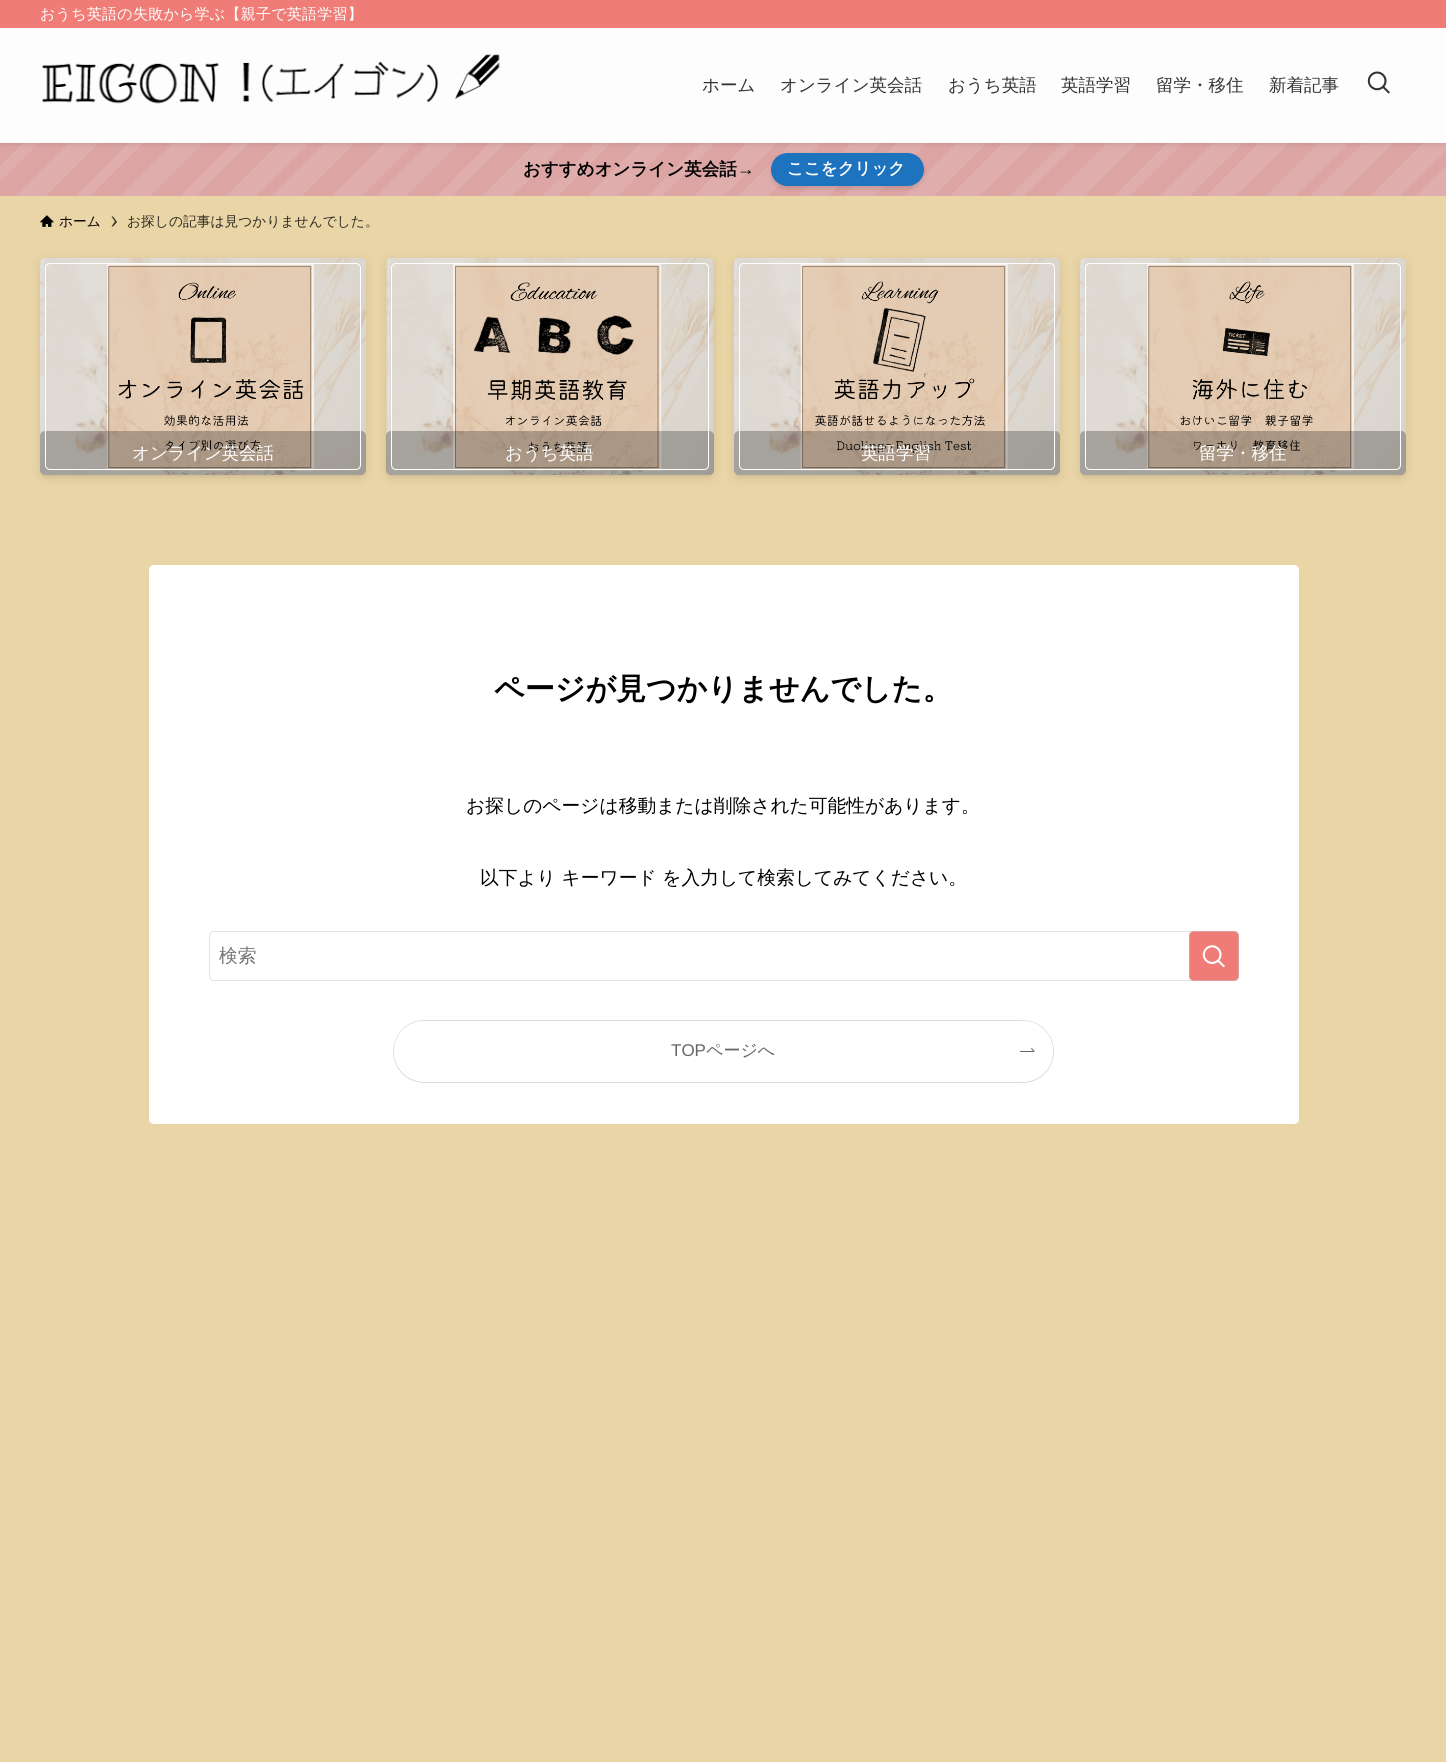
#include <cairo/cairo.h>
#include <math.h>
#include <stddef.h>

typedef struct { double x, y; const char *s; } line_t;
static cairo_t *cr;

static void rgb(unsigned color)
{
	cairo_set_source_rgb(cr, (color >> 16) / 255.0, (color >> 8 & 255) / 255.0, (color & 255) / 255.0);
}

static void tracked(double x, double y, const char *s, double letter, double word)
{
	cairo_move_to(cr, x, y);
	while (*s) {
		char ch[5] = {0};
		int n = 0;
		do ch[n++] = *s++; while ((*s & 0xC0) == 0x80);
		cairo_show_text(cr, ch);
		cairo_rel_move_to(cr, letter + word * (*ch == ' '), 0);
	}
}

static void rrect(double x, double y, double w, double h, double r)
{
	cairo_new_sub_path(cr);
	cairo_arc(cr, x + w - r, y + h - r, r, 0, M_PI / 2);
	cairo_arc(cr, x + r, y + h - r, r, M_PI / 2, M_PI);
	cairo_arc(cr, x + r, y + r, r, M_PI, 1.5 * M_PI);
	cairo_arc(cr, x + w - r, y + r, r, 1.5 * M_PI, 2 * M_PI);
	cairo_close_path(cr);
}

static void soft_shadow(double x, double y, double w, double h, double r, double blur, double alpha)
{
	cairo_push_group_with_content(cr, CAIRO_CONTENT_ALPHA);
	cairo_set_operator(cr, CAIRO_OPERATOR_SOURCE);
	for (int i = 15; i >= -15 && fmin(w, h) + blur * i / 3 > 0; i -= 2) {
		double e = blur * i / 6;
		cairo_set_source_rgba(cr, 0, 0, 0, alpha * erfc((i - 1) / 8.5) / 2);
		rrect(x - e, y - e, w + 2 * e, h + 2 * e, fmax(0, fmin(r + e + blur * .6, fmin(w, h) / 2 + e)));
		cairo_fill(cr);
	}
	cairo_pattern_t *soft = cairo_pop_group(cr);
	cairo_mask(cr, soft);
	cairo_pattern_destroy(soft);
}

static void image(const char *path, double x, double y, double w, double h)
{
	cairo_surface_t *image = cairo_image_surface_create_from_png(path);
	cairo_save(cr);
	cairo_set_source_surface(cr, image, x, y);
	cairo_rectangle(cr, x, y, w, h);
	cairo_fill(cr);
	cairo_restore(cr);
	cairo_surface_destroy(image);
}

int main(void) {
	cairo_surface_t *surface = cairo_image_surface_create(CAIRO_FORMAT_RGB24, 1446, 1762);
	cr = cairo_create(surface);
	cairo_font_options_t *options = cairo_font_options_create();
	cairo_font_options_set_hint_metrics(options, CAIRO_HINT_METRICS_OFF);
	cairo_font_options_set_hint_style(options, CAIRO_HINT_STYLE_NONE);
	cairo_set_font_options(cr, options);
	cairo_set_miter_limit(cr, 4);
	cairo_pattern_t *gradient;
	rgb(0xead5a6);
	cairo_paint(cr);
	gradient = cairo_pattern_create_linear(1098, 544, 345, -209);
	cairo_pattern_add_color_stop_rgba(gradient, 0, 0.878, 0.678, 0.678, 1);
	cairo_pattern_add_color_stop_rgba(gradient, 0.01, 0.878, 0.678, 0.678, 1);
	cairo_pattern_add_color_stop_rgba(gradient, 0.01, 0.867, 0.643, 0.643, 1);
	cairo_pattern_add_color_stop_rgba(gradient, 0.01, 0.878, 0.678, 0.678, 1);
	cairo_pattern_add_color_stop_rgba(gradient, 0.02, 0.878, 0.678, 0.678, 1);
	cairo_pattern_add_color_stop_rgba(gradient, 0.02, 0.867, 0.643, 0.643, 1);
	cairo_pattern_add_color_stop_rgba(gradient, 0.03, 0.867, 0.643, 0.643, 1);
	cairo_pattern_add_color_stop_rgba(gradient, 0.03, 0.878, 0.678, 0.678, 1);
	cairo_pattern_add_color_stop_rgba(gradient, 0.04, 0.878, 0.678, 0.678, 1);
	cairo_pattern_add_color_stop_rgba(gradient, 0.04, 0.867, 0.643, 0.643, 1);
	cairo_pattern_add_color_stop_rgba(gradient, 0.04, 0.878, 0.678, 0.678, 1);
	cairo_pattern_add_color_stop_rgba(gradient, 0.05, 0.878, 0.678, 0.678, 1);
	cairo_pattern_add_color_stop_rgba(gradient, 0.05, 0.867, 0.643, 0.643, 1);
	cairo_pattern_add_color_stop_rgba(gradient, 0.06, 0.867, 0.643, 0.643, 1);
	cairo_pattern_add_color_stop_rgba(gradient, 0.06, 0.878, 0.678, 0.678, 1);
	cairo_pattern_add_color_stop_rgba(gradient, 0.06, 0.867, 0.643, 0.643, 1);
	cairo_pattern_add_color_stop_rgba(gradient, 0.07, 0.867, 0.643, 0.643, 1);
	cairo_pattern_add_color_stop_rgba(gradient, 0.07, 0.878, 0.678, 0.678, 1);
	cairo_pattern_add_color_stop_rgba(gradient, 0.08, 0.878, 0.678, 0.678, 1);
	cairo_pattern_add_color_stop_rgba(gradient, 0.08, 0.867, 0.643, 0.643, 1);
	cairo_pattern_add_color_stop_rgba(gradient, 0.08, 0.878, 0.678, 0.678, 1);
	cairo_pattern_add_color_stop_rgba(gradient, 0.09, 0.878, 0.678, 0.678, 1);
	cairo_pattern_add_color_stop_rgba(gradient, 0.09, 0.867, 0.643, 0.643, 1);
	cairo_pattern_add_color_stop_rgba(gradient, 0.1, 0.867, 0.643, 0.643, 1);
	cairo_pattern_add_color_stop_rgba(gradient, 0.1, 0.878, 0.678, 0.678, 1);
	cairo_pattern_add_color_stop_rgba(gradient, 0.11, 0.878, 0.678, 0.678, 1);
	cairo_pattern_add_color_stop_rgba(gradient, 0.11, 0.867, 0.643, 0.643, 1);
	cairo_pattern_add_color_stop_rgba(gradient, 0.11, 0.878, 0.678, 0.678, 1);
	cairo_pattern_add_color_stop_rgba(gradient, 0.12, 0.878, 0.678, 0.678, 1);
	cairo_pattern_add_color_stop_rgba(gradient, 0.12, 0.867, 0.643, 0.643, 1);
	cairo_pattern_add_color_stop_rgba(gradient, 0.13, 0.867, 0.643, 0.643, 1);
	cairo_pattern_add_color_stop_rgba(gradient, 0.13, 0.878, 0.678, 0.678, 1);
	cairo_pattern_add_color_stop_rgba(gradient, 0.13, 0.867, 0.643, 0.643, 1);
	cairo_pattern_add_color_stop_rgba(gradient, 0.14, 0.867, 0.643, 0.643, 1);
	cairo_pattern_add_color_stop_rgba(gradient, 0.14, 0.878, 0.678, 0.678, 1);
	cairo_pattern_add_color_stop_rgba(gradient, 0.15, 0.878, 0.678, 0.678, 1);
	cairo_pattern_add_color_stop_rgba(gradient, 0.15, 0.867, 0.643, 0.643, 1);
	cairo_pattern_add_color_stop_rgba(gradient, 0.15, 0.878, 0.678, 0.678, 1);
	cairo_pattern_add_color_stop_rgba(gradient, 0.16, 0.878, 0.678, 0.678, 1);
	cairo_pattern_add_color_stop_rgba(gradient, 0.16, 0.867, 0.643, 0.643, 1);
	cairo_pattern_add_color_stop_rgba(gradient, 0.17, 0.867, 0.643, 0.643, 1);
	cairo_pattern_add_color_stop_rgba(gradient, 0.17, 0.878, 0.678, 0.678, 1);
	cairo_pattern_add_color_stop_rgba(gradient, 0.18, 0.878, 0.678, 0.678, 1);
	cairo_pattern_add_color_stop_rgba(gradient, 0.18, 0.867, 0.643, 0.643, 1);
	cairo_pattern_add_color_stop_rgba(gradient, 0.18, 0.878, 0.678, 0.678, 1);
	cairo_pattern_add_color_stop_rgba(gradient, 0.19, 0.878, 0.678, 0.678, 1);
	cairo_pattern_add_color_stop_rgba(gradient, 0.19, 0.867, 0.643, 0.643, 1);
	cairo_pattern_add_color_stop_rgba(gradient, 0.2, 0.867, 0.643, 0.643, 1);
	cairo_pattern_add_color_stop_rgba(gradient, 0.2, 0.878, 0.678, 0.678, 1);
	cairo_pattern_add_color_stop_rgba(gradient, 0.2, 0.867, 0.643, 0.643, 1);
	cairo_pattern_add_color_stop_rgba(gradient, 0.21, 0.867, 0.643, 0.643, 1);
	cairo_pattern_add_color_stop_rgba(gradient, 0.21, 0.878, 0.678, 0.678, 1);
	cairo_pattern_add_color_stop_rgba(gradient, 0.22, 0.878, 0.678, 0.678, 1);
	cairo_pattern_add_color_stop_rgba(gradient, 0.22, 0.867, 0.643, 0.643, 1);
	cairo_pattern_add_color_stop_rgba(gradient, 0.23, 0.867, 0.643, 0.643, 1);
	cairo_pattern_add_color_stop_rgba(gradient, 0.23, 0.878, 0.678, 0.678, 1);
	cairo_pattern_add_color_stop_rgba(gradient, 0.23, 0.867, 0.643, 0.643, 1);
	cairo_pattern_add_color_stop_rgba(gradient, 0.24, 0.867, 0.643, 0.643, 1);
	cairo_pattern_add_color_stop_rgba(gradient, 0.24, 0.878, 0.678, 0.678, 1);
	cairo_pattern_add_color_stop_rgba(gradient, 0.25, 0.878, 0.678, 0.678, 1);
	cairo_pattern_add_color_stop_rgba(gradient, 0.25, 0.867, 0.643, 0.643, 1);
	cairo_pattern_add_color_stop_rgba(gradient, 0.25, 0.878, 0.678, 0.678, 1);
	cairo_pattern_add_color_stop_rgba(gradient, 0.26, 0.878, 0.678, 0.678, 1);
	cairo_pattern_add_color_stop_rgba(gradient, 0.26, 0.867, 0.643, 0.643, 1);
	cairo_pattern_add_color_stop_rgba(gradient, 0.27, 0.867, 0.643, 0.643, 1);
	cairo_pattern_add_color_stop_rgba(gradient, 0.27, 0.878, 0.678, 0.678, 1);
	cairo_pattern_add_color_stop_rgba(gradient, 0.27, 0.867, 0.643, 0.643, 1);
	cairo_pattern_add_color_stop_rgba(gradient, 0.28, 0.867, 0.643, 0.643, 1);
	cairo_pattern_add_color_stop_rgba(gradient, 0.28, 0.878, 0.678, 0.678, 1);
	cairo_pattern_add_color_stop_rgba(gradient, 0.29, 0.878, 0.678, 0.678, 1);
	cairo_pattern_add_color_stop_rgba(gradient, 0.29, 0.867, 0.643, 0.643, 1);
	cairo_pattern_add_color_stop_rgba(gradient, 0.3, 0.867, 0.643, 0.643, 1);
	cairo_pattern_add_color_stop_rgba(gradient, 0.3, 0.878, 0.678, 0.678, 1);
	cairo_pattern_add_color_stop_rgba(gradient, 0.3, 0.867, 0.643, 0.643, 1);
	cairo_pattern_add_color_stop_rgba(gradient, 0.31, 0.867, 0.643, 0.643, 1);
	cairo_pattern_add_color_stop_rgba(gradient, 0.31, 0.878, 0.678, 0.678, 1);
	cairo_pattern_add_color_stop_rgba(gradient, 0.32, 0.878, 0.678, 0.678, 1);
	cairo_pattern_add_color_stop_rgba(gradient, 0.32, 0.867, 0.643, 0.643, 1);
	cairo_pattern_add_color_stop_rgba(gradient, 0.32, 0.878, 0.678, 0.678, 1);
	cairo_pattern_add_color_stop_rgba(gradient, 0.33, 0.878, 0.678, 0.678, 1);
	cairo_pattern_add_color_stop_rgba(gradient, 0.33, 0.867, 0.643, 0.643, 1);
	cairo_pattern_add_color_stop_rgba(gradient, 0.34, 0.867, 0.643, 0.643, 1);
	cairo_pattern_add_color_stop_rgba(gradient, 0.34, 0.878, 0.678, 0.678, 1);
	cairo_pattern_add_color_stop_rgba(gradient, 0.35, 0.878, 0.678, 0.678, 1);
	cairo_pattern_add_color_stop_rgba(gradient, 0.35, 0.867, 0.643, 0.643, 1);
	cairo_pattern_add_color_stop_rgba(gradient, 0.35, 0.878, 0.678, 0.678, 1);
	cairo_pattern_add_color_stop_rgba(gradient, 0.36, 0.878, 0.678, 0.678, 1);
	cairo_pattern_add_color_stop_rgba(gradient, 0.36, 0.867, 0.643, 0.643, 1);
	cairo_pattern_add_color_stop_rgba(gradient, 0.37, 0.867, 0.643, 0.643, 1);
	cairo_pattern_add_color_stop_rgba(gradient, 0.37, 0.878, 0.678, 0.678, 1);
	cairo_pattern_add_color_stop_rgba(gradient, 0.37, 0.867, 0.643, 0.643, 1);
	cairo_pattern_add_color_stop_rgba(gradient, 0.38, 0.867, 0.643, 0.643, 1);
	cairo_pattern_add_color_stop_rgba(gradient, 0.38, 0.878, 0.678, 0.678, 1);
	cairo_pattern_add_color_stop_rgba(gradient, 0.39, 0.878, 0.678, 0.678, 1);
	cairo_pattern_add_color_stop_rgba(gradient, 0.39, 0.867, 0.643, 0.643, 1);
	cairo_pattern_add_color_stop_rgba(gradient, 0.39, 0.878, 0.678, 0.678, 1);
	cairo_pattern_add_color_stop_rgba(gradient, 0.4, 0.878, 0.678, 0.678, 1);
	cairo_pattern_add_color_stop_rgba(gradient, 0.4, 0.867, 0.643, 0.643, 1);
	cairo_pattern_add_color_stop_rgba(gradient, 0.41, 0.867, 0.643, 0.643, 1);
	cairo_pattern_add_color_stop_rgba(gradient, 0.41, 0.878, 0.678, 0.678, 1);
	cairo_pattern_add_color_stop_rgba(gradient, 0.42, 0.878, 0.678, 0.678, 1);
	cairo_pattern_add_color_stop_rgba(gradient, 0.42, 0.867, 0.643, 0.643, 1);
	cairo_pattern_add_color_stop_rgba(gradient, 0.42, 0.878, 0.678, 0.678, 1);
	cairo_pattern_add_color_stop_rgba(gradient, 0.43, 0.878, 0.678, 0.678, 1);
	cairo_pattern_add_color_stop_rgba(gradient, 0.43, 0.867, 0.643, 0.643, 1);
	cairo_pattern_add_color_stop_rgba(gradient, 0.44, 0.867, 0.643, 0.643, 1);
	cairo_pattern_add_color_stop_rgba(gradient, 0.44, 0.878, 0.678, 0.678, 1);
	cairo_pattern_add_color_stop_rgba(gradient, 0.44, 0.867, 0.643, 0.643, 1);
	cairo_pattern_add_color_stop_rgba(gradient, 0.45, 0.867, 0.643, 0.643, 1);
	cairo_pattern_add_color_stop_rgba(gradient, 0.45, 0.878, 0.678, 0.678, 1);
	cairo_pattern_add_color_stop_rgba(gradient, 0.46, 0.878, 0.678, 0.678, 1);
	cairo_pattern_add_color_stop_rgba(gradient, 0.46, 0.867, 0.643, 0.643, 1);
	cairo_pattern_add_color_stop_rgba(gradient, 0.46, 0.878, 0.678, 0.678, 1);
	cairo_pattern_add_color_stop_rgba(gradient, 0.47, 0.878, 0.678, 0.678, 1);
	cairo_pattern_add_color_stop_rgba(gradient, 0.47, 0.867, 0.643, 0.643, 1);
	cairo_pattern_add_color_stop_rgba(gradient, 0.48, 0.867, 0.643, 0.643, 1);
	cairo_pattern_add_color_stop_rgba(gradient, 0.48, 0.878, 0.678, 0.678, 1);
	cairo_pattern_add_color_stop_rgba(gradient, 0.49, 0.878, 0.678, 0.678, 1);
	cairo_pattern_add_color_stop_rgba(gradient, 0.49, 0.867, 0.643, 0.643, 1);
	cairo_pattern_add_color_stop_rgba(gradient, 0.49, 0.878, 0.678, 0.678, 1);
	cairo_pattern_add_color_stop_rgba(gradient, 0.5, 0.878, 0.678, 0.678, 1);
	cairo_pattern_add_color_stop_rgba(gradient, 0.5, 0.867, 0.643, 0.643, 1);
	cairo_pattern_add_color_stop_rgba(gradient, 0.51, 0.867, 0.643, 0.643, 1);
	cairo_pattern_add_color_stop_rgba(gradient, 0.51, 0.878, 0.678, 0.678, 1);
	cairo_pattern_add_color_stop_rgba(gradient, 0.51, 0.867, 0.643, 0.643, 1);
	cairo_pattern_add_color_stop_rgba(gradient, 0.52, 0.867, 0.643, 0.643, 1);
	cairo_pattern_add_color_stop_rgba(gradient, 0.52, 0.878, 0.678, 0.678, 1);
	cairo_pattern_add_color_stop_rgba(gradient, 0.53, 0.878, 0.678, 0.678, 1);
	cairo_pattern_add_color_stop_rgba(gradient, 0.53, 0.867, 0.643, 0.643, 1);
	cairo_pattern_add_color_stop_rgba(gradient, 0.54, 0.867, 0.643, 0.643, 1);
	cairo_pattern_add_color_stop_rgba(gradient, 0.54, 0.878, 0.678, 0.678, 1);
	cairo_pattern_add_color_stop_rgba(gradient, 0.54, 0.867, 0.643, 0.643, 1);
	cairo_pattern_add_color_stop_rgba(gradient, 0.55, 0.867, 0.643, 0.643, 1);
	cairo_pattern_add_color_stop_rgba(gradient, 0.55, 0.878, 0.678, 0.678, 1);
	cairo_pattern_add_color_stop_rgba(gradient, 0.56, 0.878, 0.678, 0.678, 1);
	cairo_pattern_add_color_stop_rgba(gradient, 0.56, 0.867, 0.643, 0.643, 1);
	cairo_pattern_add_color_stop_rgba(gradient, 0.56, 0.878, 0.678, 0.678, 1);
	cairo_pattern_add_color_stop_rgba(gradient, 0.57, 0.878, 0.678, 0.678, 1);
	cairo_pattern_add_color_stop_rgba(gradient, 0.57, 0.867, 0.643, 0.643, 1);
	cairo_pattern_add_color_stop_rgba(gradient, 0.58, 0.867, 0.643, 0.643, 1);
	cairo_pattern_add_color_stop_rgba(gradient, 0.58, 0.878, 0.678, 0.678, 1);
	cairo_pattern_add_color_stop_rgba(gradient, 0.58, 0.867, 0.643, 0.643, 1);
	cairo_pattern_add_color_stop_rgba(gradient, 0.59, 0.867, 0.643, 0.643, 1);
	cairo_pattern_add_color_stop_rgba(gradient, 0.59, 0.878, 0.678, 0.678, 1);
	cairo_pattern_add_color_stop_rgba(gradient, 0.6, 0.878, 0.678, 0.678, 1);
	cairo_pattern_add_color_stop_rgba(gradient, 0.6, 0.867, 0.643, 0.643, 1);
	cairo_pattern_add_color_stop_rgba(gradient, 0.61, 0.867, 0.643, 0.643, 1);
	cairo_pattern_add_color_stop_rgba(gradient, 0.61, 0.878, 0.678, 0.678, 1);
	cairo_pattern_add_color_stop_rgba(gradient, 0.61, 0.867, 0.643, 0.643, 1);
	cairo_pattern_add_color_stop_rgba(gradient, 0.62, 0.867, 0.643, 0.643, 1);
	cairo_pattern_add_color_stop_rgba(gradient, 0.62, 0.878, 0.678, 0.678, 1);
	cairo_pattern_add_color_stop_rgba(gradient, 0.63, 0.878, 0.678, 0.678, 1);
	cairo_pattern_add_color_stop_rgba(gradient, 0.63, 0.867, 0.643, 0.643, 1);
	cairo_pattern_add_color_stop_rgba(gradient, 0.63, 0.878, 0.678, 0.678, 1);
	cairo_pattern_add_color_stop_rgba(gradient, 0.64, 0.878, 0.678, 0.678, 1);
	cairo_pattern_add_color_stop_rgba(gradient, 0.64, 0.867, 0.643, 0.643, 1);
	cairo_pattern_add_color_stop_rgba(gradient, 0.65, 0.867, 0.643, 0.643, 1);
	cairo_pattern_add_color_stop_rgba(gradient, 0.65, 0.878, 0.678, 0.678, 1);
	cairo_pattern_add_color_stop_rgba(gradient, 0.65, 0.867, 0.643, 0.643, 1);
	cairo_pattern_add_color_stop_rgba(gradient, 0.66, 0.867, 0.643, 0.643, 1);
	cairo_pattern_add_color_stop_rgba(gradient, 0.66, 0.878, 0.678, 0.678, 1);
	cairo_pattern_add_color_stop_rgba(gradient, 0.67, 0.878, 0.678, 0.678, 1);
	cairo_pattern_add_color_stop_rgba(gradient, 0.67, 0.867, 0.643, 0.643, 1);
	cairo_pattern_add_color_stop_rgba(gradient, 0.68, 0.867, 0.643, 0.643, 1);
	cairo_pattern_add_color_stop_rgba(gradient, 0.68, 0.878, 0.678, 0.678, 1);
	cairo_pattern_add_color_stop_rgba(gradient, 0.68, 0.867, 0.643, 0.643, 1);
	cairo_pattern_add_color_stop_rgba(gradient, 0.69, 0.867, 0.643, 0.643, 1);
	cairo_pattern_add_color_stop_rgba(gradient, 0.69, 0.878, 0.678, 0.678, 1);
	cairo_pattern_add_color_stop_rgba(gradient, 0.7, 0.878, 0.678, 0.678, 1);
	cairo_pattern_add_color_stop_rgba(gradient, 0.7, 0.867, 0.643, 0.643, 1);
	cairo_pattern_add_color_stop_rgba(gradient, 0.7, 0.878, 0.678, 0.678, 1);
	cairo_pattern_add_color_stop_rgba(gradient, 0.71, 0.878, 0.678, 0.678, 1);
	cairo_pattern_add_color_stop_rgba(gradient, 0.71, 0.867, 0.643, 0.643, 1);
	cairo_pattern_add_color_stop_rgba(gradient, 0.72, 0.867, 0.643, 0.643, 1);
	cairo_pattern_add_color_stop_rgba(gradient, 0.72, 0.878, 0.678, 0.678, 1);
	cairo_pattern_add_color_stop_rgba(gradient, 0.73, 0.878, 0.678, 0.678, 1);
	cairo_pattern_add_color_stop_rgba(gradient, 0.73, 0.867, 0.643, 0.643, 1);
	cairo_pattern_add_color_stop_rgba(gradient, 0.73, 0.878, 0.678, 0.678, 1);
	cairo_pattern_add_color_stop_rgba(gradient, 0.74, 0.878, 0.678, 0.678, 1);
	cairo_pattern_add_color_stop_rgba(gradient, 0.74, 0.867, 0.643, 0.643, 1);
	cairo_pattern_add_color_stop_rgba(gradient, 0.75, 0.867, 0.643, 0.643, 1);
	cairo_pattern_add_color_stop_rgba(gradient, 0.75, 0.878, 0.678, 0.678, 1);
	cairo_pattern_add_color_stop_rgba(gradient, 0.75, 0.867, 0.643, 0.643, 1);
	cairo_pattern_add_color_stop_rgba(gradient, 0.76, 0.867, 0.643, 0.643, 1);
	cairo_pattern_add_color_stop_rgba(gradient, 0.76, 0.878, 0.678, 0.678, 1);
	cairo_pattern_add_color_stop_rgba(gradient, 0.77, 0.878, 0.678, 0.678, 1);
	cairo_pattern_add_color_stop_rgba(gradient, 0.77, 0.867, 0.643, 0.643, 1);
	cairo_pattern_add_color_stop_rgba(gradient, 0.77, 0.878, 0.678, 0.678, 1);
	cairo_pattern_add_color_stop_rgba(gradient, 0.78, 0.878, 0.678, 0.678, 1);
	cairo_pattern_add_color_stop_rgba(gradient, 0.78, 0.867, 0.643, 0.643, 1);
	cairo_pattern_add_color_stop_rgba(gradient, 0.79, 0.867, 0.643, 0.643, 1);
	cairo_pattern_add_color_stop_rgba(gradient, 0.79, 0.878, 0.678, 0.678, 1);
	cairo_pattern_add_color_stop_rgba(gradient, 0.8, 0.878, 0.678, 0.678, 1);
	cairo_pattern_add_color_stop_rgba(gradient, 0.8, 0.867, 0.643, 0.643, 1);
	cairo_pattern_add_color_stop_rgba(gradient, 0.8, 0.878, 0.678, 0.678, 1);
	cairo_pattern_add_color_stop_rgba(gradient, 0.81, 0.878, 0.678, 0.678, 1);
	cairo_pattern_add_color_stop_rgba(gradient, 0.81, 0.867, 0.643, 0.643, 1);
	cairo_pattern_add_color_stop_rgba(gradient, 0.82, 0.867, 0.643, 0.643, 1);
	cairo_pattern_add_color_stop_rgba(gradient, 0.82, 0.878, 0.678, 0.678, 1);
	cairo_pattern_add_color_stop_rgba(gradient, 0.82, 0.867, 0.643, 0.643, 1);
	cairo_pattern_add_color_stop_rgba(gradient, 0.83, 0.867, 0.643, 0.643, 1);
	cairo_pattern_add_color_stop_rgba(gradient, 0.83, 0.878, 0.678, 0.678, 1);
	cairo_pattern_add_color_stop_rgba(gradient, 0.84, 0.878, 0.678, 0.678, 1);
	cairo_pattern_add_color_stop_rgba(gradient, 0.84, 0.867, 0.643, 0.643, 1);
	cairo_pattern_add_color_stop_rgba(gradient, 0.85, 0.867, 0.643, 0.643, 1);
	cairo_pattern_add_color_stop_rgba(gradient, 0.85, 0.878, 0.678, 0.678, 1);
	cairo_pattern_add_color_stop_rgba(gradient, 0.85, 0.867, 0.643, 0.643, 1);
	cairo_pattern_add_color_stop_rgba(gradient, 0.86, 0.867, 0.643, 0.643, 1);
	cairo_pattern_add_color_stop_rgba(gradient, 0.86, 0.878, 0.678, 0.678, 1);
	cairo_pattern_add_color_stop_rgba(gradient, 0.87, 0.878, 0.678, 0.678, 1);
	cairo_pattern_add_color_stop_rgba(gradient, 0.87, 0.867, 0.643, 0.643, 1);
	cairo_pattern_add_color_stop_rgba(gradient, 0.87, 0.878, 0.678, 0.678, 1);
	cairo_pattern_add_color_stop_rgba(gradient, 0.88, 0.878, 0.678, 0.678, 1);
	cairo_pattern_add_color_stop_rgba(gradient, 0.88, 0.867, 0.643, 0.643, 1);
	cairo_pattern_add_color_stop_rgba(gradient, 0.89, 0.867, 0.643, 0.643, 1);
	cairo_pattern_add_color_stop_rgba(gradient, 0.89, 0.878, 0.678, 0.678, 1);
	cairo_pattern_add_color_stop_rgba(gradient, 0.89, 0.867, 0.643, 0.643, 1);
	cairo_pattern_add_color_stop_rgba(gradient, 0.9, 0.867, 0.643, 0.643, 1);
	cairo_pattern_add_color_stop_rgba(gradient, 0.9, 0.878, 0.678, 0.678, 1);
	cairo_pattern_add_color_stop_rgba(gradient, 0.91, 0.878, 0.678, 0.678, 1);
	cairo_pattern_add_color_stop_rgba(gradient, 0.91, 0.867, 0.643, 0.643, 1);
	cairo_pattern_add_color_stop_rgba(gradient, 0.92, 0.867, 0.643, 0.643, 1);
	cairo_pattern_add_color_stop_rgba(gradient, 0.92, 0.878, 0.678, 0.678, 1);
	cairo_pattern_add_color_stop_rgba(gradient, 0.92, 0.867, 0.643, 0.643, 1);
	cairo_pattern_add_color_stop_rgba(gradient, 0.93, 0.867, 0.643, 0.643, 1);
	cairo_pattern_add_color_stop_rgba(gradient, 0.93, 0.878, 0.678, 0.678, 1);
	cairo_pattern_add_color_stop_rgba(gradient, 0.94, 0.878, 0.678, 0.678, 1);
	cairo_pattern_add_color_stop_rgba(gradient, 0.94, 0.867, 0.643, 0.643, 1);
	cairo_pattern_add_color_stop_rgba(gradient, 0.94, 0.878, 0.678, 0.678, 1);
	cairo_pattern_add_color_stop_rgba(gradient, 0.95, 0.878, 0.678, 0.678, 1);
	cairo_pattern_add_color_stop_rgba(gradient, 0.95, 0.867, 0.643, 0.643, 1);
	cairo_pattern_add_color_stop_rgba(gradient, 0.96, 0.867, 0.643, 0.643, 1);
	cairo_pattern_add_color_stop_rgba(gradient, 0.96, 0.878, 0.678, 0.678, 1);
	cairo_pattern_add_color_stop_rgba(gradient, 0.96, 0.867, 0.643, 0.643, 1);
	cairo_pattern_add_color_stop_rgba(gradient, 0.97, 0.867, 0.643, 0.643, 1);
	cairo_pattern_add_color_stop_rgba(gradient, 0.97, 0.878, 0.678, 0.678, 1);
	cairo_pattern_add_color_stop_rgba(gradient, 0.98, 0.878, 0.678, 0.678, 1);
	cairo_pattern_add_color_stop_rgba(gradient, 0.98, 0.867, 0.643, 0.643, 1);
	cairo_pattern_add_color_stop_rgba(gradient, 0.99, 0.867, 0.643, 0.643, 1);
	cairo_pattern_add_color_stop_rgba(gradient, 0.99, 0.878, 0.678, 0.678, 1);
	cairo_pattern_add_color_stop_rgba(gradient, 0.99, 0.867, 0.643, 0.643, 1);
	cairo_pattern_add_color_stop_rgba(gradient, 1, 0.867, 0.643, 0.643, 1);
	cairo_set_source(cr, gradient);
	cairo_pattern_destroy(gradient);
	cairo_rectangle(cr, 0, 143, 1446, 53);
	cairo_fill(cr);
	rgb(0x000000);
	soft_shadow(0, 1, 1446, 143, 0, 2.5, 0.12);
	rgb(0xfdfdfd);
	cairo_rectangle(cr, 0, 28, 1446, 115);
	cairo_fill(cr);
	rgb(0xef7c76);
	cairo_rectangle(cr, 0, 0, 1446, 28);
	cairo_fill(cr);
	image("img/1.png", 42, 54, 458, 50);
	image("img/2.png", 1367, 71, 23, 23);
	rgb(0x000000);
	soft_shadow(771, 155, 153, 34, 17, 2.5, 0.12);
	rgb(0x1e73be);
	rrect(771, 153, 153, 33, 16.5);
	cairo_fill(cr);
	image("img/3.png", 40, 215, 14, 12);
	rgb(0x2f2b21);
	cairo_new_path(cr);
	cairo_move_to(cr, 113, 216.5);
	cairo_line_to(cr, 111.5, 216.5);
	cairo_line_to(cr, 115, 221.5);
	cairo_line_to(cr, 111.5, 226.5);
	cairo_line_to(cr, 113, 226.5);
	cairo_line_to(cr, 117, 222);
	cairo_close_path(cr);
	cairo_fill(cr);
	rgb(0x000000);
	soft_shadow(45, 268, 316, 207, 0, 2.5, 0.1);
	soft_shadow(40, 260, 326, 218, 5, 5, 0.1);
	image("img/4.png", 40, 257, 326, 218);
	cairo_set_source_rgba(cr, 0, 0, 0, 0.25);
	rrect(40, 431, 326, 44, 5);
	cairo_fill(cr);
	rrect(45.5, 263.5, 315, 206, 4.5);
	rgb(0xffffff);
	cairo_set_line_width(cr, 1);
	cairo_stroke(cr);
	rgb(0x000000);
	soft_shadow(391, 268, 318, 207, 0, 2.5, 0.1);
	soft_shadow(386, 260, 328, 218, 5, 5, 0.1);
	image("img/5.png", 386, 257, 328, 218);
	cairo_set_source_rgba(cr, 0, 0, 0, 0.25);
	rrect(386, 431, 328, 44, 5);
	cairo_fill(cr);
	rrect(391.5, 263.5, 317, 206, 4.5);
	rgb(0xffffff);
	cairo_stroke(cr);
	rgb(0x000000);
	soft_shadow(739, 268, 316, 207, 0, 2.5, 0.1);
	soft_shadow(734, 260, 326, 218, 5, 5, 0.1);
	image("img/6.png", 734, 257, 326, 218);
	cairo_set_source_rgba(cr, 0, 0, 0, 0.25);
	rrect(734, 431, 326, 44, 5);
	cairo_fill(cr);
	rrect(739.5, 263.5, 315, 206, 4.5);
	rgb(0xffffff);
	cairo_stroke(cr);
	rgb(0x000000);
	soft_shadow(1085, 268, 316, 207, 0, 2.5, 0.1);
	soft_shadow(1080, 260, 326, 218, 5, 5, 0.1);
	image("img/7.png", 1080, 257, 326, 218);
	cairo_set_source_rgba(cr, 0, 0, 0, 0.25);
	rrect(1080, 431, 326, 44, 5);
	cairo_fill(cr);
	rrect(1085.5, 263.5, 315, 206, 4.5);
	rgb(0xffffff);
	cairo_stroke(cr);
	rrect(149, 565, 1150, 559, 5);
	cairo_fill(cr);
	rrect(209.5, 931.5, 1029, 49, 4.5);
	rgb(0xe3e3e3);
	cairo_stroke(cr);
	rgb(0xef7c76);
	rrect(1189, 931, 50, 50, 5);
	cairo_fill(cr);
	rrect(1189.5, 931.5, 49, 49, 4.5);
	cairo_set_source_rgba(cr, 0.78, 0.78, 0.78, 0.5);
	cairo_stroke(cr);
	image("img/8.png", 1202, 945, 23, 23);
	rrect(393.5, 1020.5, 660, 62, 31);
	rgb(0xdcdcdc);
	cairo_stroke(cr);
	rgb(0xffffff);
	rrect(394, 1021, 659, 60, 30);
	cairo_fill(cr);
	image("img/9.png", 1020, 1048, 15, 4);
	cairo_select_font_face(cr, "WenQuanYi Zen Hei Medium", CAIRO_FONT_SLANT_NORMAL, CAIRO_FONT_WEIGHT_NORMAL);
	cairo_set_font_size(cr, 15);
	tracked(40, 19, "おうち英語の失敗から学ぶ【親子で英語学習】", 0.25, 0);
	cairo_set_font_size(cr, 17.5);
	rgb(0x333333);
	{
		static const line_t items[] = {
			{702, 91, "ホーム"},
			{780, 91, "オンライン英会話"},
			{948, 91, "おうち英語"},
			{1061, 91, "英語学習"},
			{1156, 91, "留学・移住"},
			{1269, 91, "新着記事"},
		};
		for (size_t i = 0; i < sizeof items / sizeof *items; i++) {
			cairo_move_to(cr, items[i].x, items[i].y);
			cairo_show_text(cr, items[i].s);
		}
	}
	cairo_select_font_face(cr, "WenQuanYi Zen Hei", CAIRO_FONT_SLANT_NORMAL, CAIRO_FONT_WEIGHT_BOLD);
	rgb(0x000000);
	cairo_move_to(cr, 523, 175);
	cairo_show_text(cr, "おすすめオンライン英会話");
	cairo_select_font_face(cr, "Liberation Sans", CAIRO_FONT_SLANT_NORMAL, CAIRO_FONT_WEIGHT_BOLD);
	cairo_move_to(cr, 737, 175);
	cairo_show_text(cr, "→");
	cairo_select_font_face(cr, "WenQuanYi Zen Hei", CAIRO_FONT_SLANT_NORMAL, CAIRO_FONT_WEIGHT_BOLD);
	cairo_set_font_size(cr, 16.5);
	rgb(0xffffff);
	cairo_move_to(cr, 787, 174);
	cairo_show_text(cr, "ここをクリック");
	cairo_select_font_face(cr, "WenQuanYi Zen Hei Medium", CAIRO_FONT_SLANT_NORMAL, CAIRO_FONT_WEIGHT_NORMAL);
	cairo_set_font_size(cr, 13.75);
	rgb(0x000000);
	cairo_move_to(cr, 59, 226);
	cairo_show_text(cr, "ホーム");
	rgb(0x2f2b21);
	cairo_move_to(cr, 127, 226);
	cairo_show_text(cr, "お探しの記事は見つかりませんでした。");
	cairo_set_font_size(cr, 17.5);
	rgb(0xffffff);
	{
		static const line_t items[] = {
			{132, 459, "オンライン英会話"},
			{505, 459, "おうち英語"},
			{861, 459, "英語学習"},
			{1199, 459, "留学・移住"},
		};
		for (size_t i = 0; i < sizeof items / sizeof *items; i++) {
			cairo_move_to(cr, items[i].x, items[i].y);
			cairo_show_text(cr, items[i].s);
		}
	}
	cairo_select_font_face(cr, "WenQuanYi Zen Hei", CAIRO_FONT_SLANT_NORMAL, CAIRO_FONT_WEIGHT_BOLD);
	cairo_set_font_size(cr, 30);
	rgb(0x000000);
	cairo_move_to(cr, 494, 699);
	cairo_show_text(cr, "ページが見つかりませんでした。");
	cairo_select_font_face(cr, "WenQuanYi Zen Hei Medium", CAIRO_FONT_SLANT_NORMAL, CAIRO_FONT_WEIGHT_NORMAL);
	cairo_set_font_size(cr, 18.75);
	cairo_move_to(cr, 466, 812);
	cairo_show_text(cr, "お探しのページは移動または削除された可能性があります。");
	cairo_move_to(cr, 480, 884);
	cairo_show_text(cr, "以下より キーワード を入力して検索してみてください。");
	rgb(0x757575);
	cairo_move_to(cr, 219, 962);
	cairo_show_text(cr, "検索");
	cairo_select_font_face(cr, "Liberation Sans", CAIRO_FONT_SLANT_NORMAL, CAIRO_FONT_WEIGHT_NORMAL);
	cairo_set_font_size(cr, 17);
	rgb(0x666666);
	cairo_move_to(cr, 671, 1056);
	cairo_show_text(cr, "TOP");
	cairo_select_font_face(cr, "WenQuanYi Zen Hei Medium", CAIRO_FONT_SLANT_NORMAL, CAIRO_FONT_WEIGHT_NORMAL);
	cairo_move_to(cr, 706, 1056);
	cairo_show_text(cr, "ページへ");
	cairo_surface_write_to_png(surface, "page.png");
	cairo_font_options_destroy(options);
	cairo_destroy(cr);
	cairo_surface_destroy(surface);
	return 0;
}
